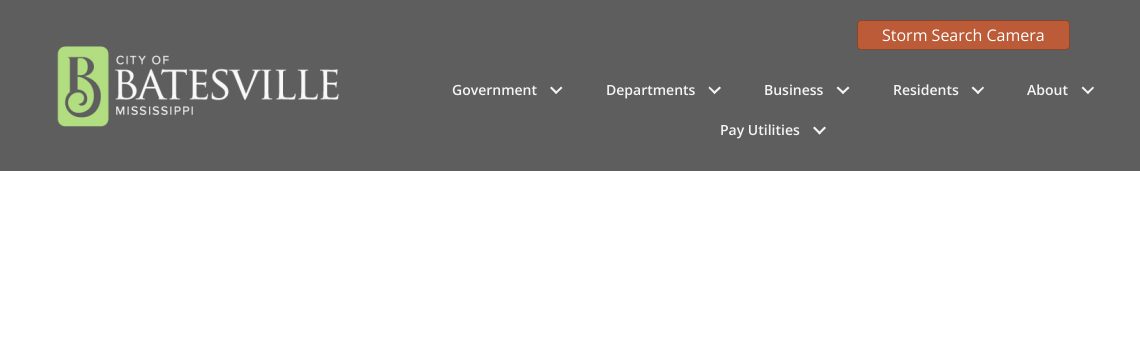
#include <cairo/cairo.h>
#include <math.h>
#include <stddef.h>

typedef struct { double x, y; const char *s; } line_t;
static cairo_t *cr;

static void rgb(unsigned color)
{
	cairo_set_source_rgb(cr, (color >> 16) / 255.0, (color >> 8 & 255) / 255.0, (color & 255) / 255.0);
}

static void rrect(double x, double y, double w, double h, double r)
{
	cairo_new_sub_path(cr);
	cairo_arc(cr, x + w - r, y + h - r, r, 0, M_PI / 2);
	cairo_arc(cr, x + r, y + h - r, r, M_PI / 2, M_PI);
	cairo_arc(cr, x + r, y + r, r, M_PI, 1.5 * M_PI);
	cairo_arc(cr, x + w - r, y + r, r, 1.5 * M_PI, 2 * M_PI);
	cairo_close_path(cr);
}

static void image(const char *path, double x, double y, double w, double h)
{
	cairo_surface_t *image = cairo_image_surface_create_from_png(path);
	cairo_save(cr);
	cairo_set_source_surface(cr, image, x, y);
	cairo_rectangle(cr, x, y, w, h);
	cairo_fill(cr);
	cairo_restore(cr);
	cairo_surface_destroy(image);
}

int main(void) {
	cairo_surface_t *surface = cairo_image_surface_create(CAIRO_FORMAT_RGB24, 1140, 349);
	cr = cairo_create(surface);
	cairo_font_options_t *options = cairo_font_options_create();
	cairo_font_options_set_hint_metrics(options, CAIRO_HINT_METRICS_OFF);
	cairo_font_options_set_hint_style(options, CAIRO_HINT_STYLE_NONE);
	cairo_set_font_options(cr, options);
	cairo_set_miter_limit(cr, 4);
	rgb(0xffffff);
	cairo_paint(cr);
	rgb(0x5e5e5e);
	cairo_rectangle(cr, 0, 0, 1140, 171);
	cairo_fill(cr);
	image("img/1.png", 57, 46, 282, 81);
	rgb(0xbb5b38);
	rrect(857.5, 20.5, 212, 29, 3.5);
	cairo_fill_preserve(cr);
	rgb(0x8c442a);
	cairo_set_line_width(cr, 1);
	cairo_stroke(cr);
	rgb(0xf4f4f4);
	cairo_new_path(cr);
	cairo_move_to(cr, 561, 86.5);
	cairo_line_to(cr, 562.5, 88);
	cairo_line_to(cr, 556, 94);
	cairo_line_to(cr, 555, 92.5);
	cairo_close_path(cr);
	cairo_fill(cr);
	cairo_new_path(cr);
	cairo_move_to(cr, 551.5, 86.5);
	cairo_line_to(cr, 557.5, 92.5);
	cairo_line_to(cr, 556, 94);
	cairo_line_to(cr, 550, 88);
	cairo_close_path(cr);
	cairo_fill(cr);
	cairo_new_path(cr);
	cairo_move_to(cr, 719.5, 86.5);
	cairo_line_to(cr, 721, 88);
	cairo_line_to(cr, 714.5, 94);
	cairo_line_to(cr, 713, 92.5);
	cairo_close_path(cr);
	cairo_fill(cr);
	cairo_new_path(cr);
	cairo_move_to(cr, 709.5, 86.5);
	cairo_line_to(cr, 716, 92.5);
	cairo_line_to(cr, 714.5, 94);
	cairo_line_to(cr, 708.5, 88);
	cairo_close_path(cr);
	cairo_fill(cr);
	cairo_new_path(cr);
	cairo_move_to(cr, 848, 86.5);
	cairo_line_to(cr, 849.5, 88);
	cairo_line_to(cr, 843, 94);
	cairo_line_to(cr, 841.5, 92.5);
	cairo_close_path(cr);
	cairo_fill(cr);
	cairo_new_path(cr);
	cairo_move_to(cr, 838, 86.5);
	cairo_line_to(cr, 844.5, 92.5);
	cairo_line_to(cr, 843, 94);
	cairo_line_to(cr, 836.5, 88);
	cairo_close_path(cr);
	cairo_fill(cr);
	cairo_new_path(cr);
	cairo_move_to(cr, 983, 86.5);
	cairo_line_to(cr, 984, 88);
	cairo_line_to(cr, 978, 94);
	cairo_line_to(cr, 976.5, 92.5);
	cairo_close_path(cr);
	cairo_fill(cr);
	cairo_new_path(cr);
	cairo_move_to(cr, 973, 86.5);
	cairo_line_to(cr, 979.5, 92.5);
	cairo_line_to(cr, 978, 94);
	cairo_line_to(cr, 971.5, 88);
	cairo_close_path(cr);
	cairo_fill(cr);
	cairo_new_path(cr);
	cairo_move_to(cr, 1093, 86.5);
	cairo_line_to(cr, 1094, 88);
	cairo_line_to(cr, 1088, 94);
	cairo_line_to(cr, 1086.5, 92.5);
	cairo_close_path(cr);
	cairo_fill(cr);
	cairo_new_path(cr);
	cairo_move_to(cr, 1083, 86.5);
	cairo_line_to(cr, 1089, 92.5);
	cairo_line_to(cr, 1088, 94);
	cairo_line_to(cr, 1081.5, 88);
	cairo_close_path(cr);
	cairo_fill(cr);
	cairo_new_path(cr);
	cairo_move_to(cr, 824.5, 126.5);
	cairo_line_to(cr, 826, 128);
	cairo_line_to(cr, 819.5, 134.5);
	cairo_line_to(cr, 818, 133);
	cairo_close_path(cr);
	cairo_fill(cr);
	cairo_new_path(cr);
	cairo_move_to(cr, 814.5, 126.5);
	cairo_line_to(cr, 821, 133);
	cairo_line_to(cr, 819.5, 134.5);
	cairo_line_to(cr, 813, 128);
	cairo_close_path(cr);
	cairo_fill(cr);
	cairo_select_font_face(cr, "Open Sans", CAIRO_FONT_SLANT_NORMAL, CAIRO_FONT_WEIGHT_NORMAL);
	cairo_set_font_size(cr, 16);
	rgb(0xffffff);
	cairo_move_to(cr, 882, 41);
	cairo_show_text(cr, "Storm Search Camera");
	cairo_select_font_face(cr, "Open Sans SemiBold", CAIRO_FONT_SLANT_NORMAL, CAIRO_FONT_WEIGHT_NORMAL);
	cairo_set_font_size(cr, 14);
	rgb(0xf4f4f4);
	{
		static const line_t items[] = {
			{452, 95, "Government"},
			{606, 95, "Departments"},
			{764, 95, "Business"},
			{893, 95, "Residents"},
			{1027, 95, "About"},
			{720, 135, "Pay Utilities"},
		};
		for (size_t i = 0; i < sizeof items / sizeof *items; i++) {
			cairo_move_to(cr, items[i].x, items[i].y);
			cairo_show_text(cr, items[i].s);
		}
	}
	cairo_surface_write_to_png(surface, "page.png");
	cairo_font_options_destroy(options);
	cairo_destroy(cr);
	cairo_surface_destroy(surface);
	return 0;
}
